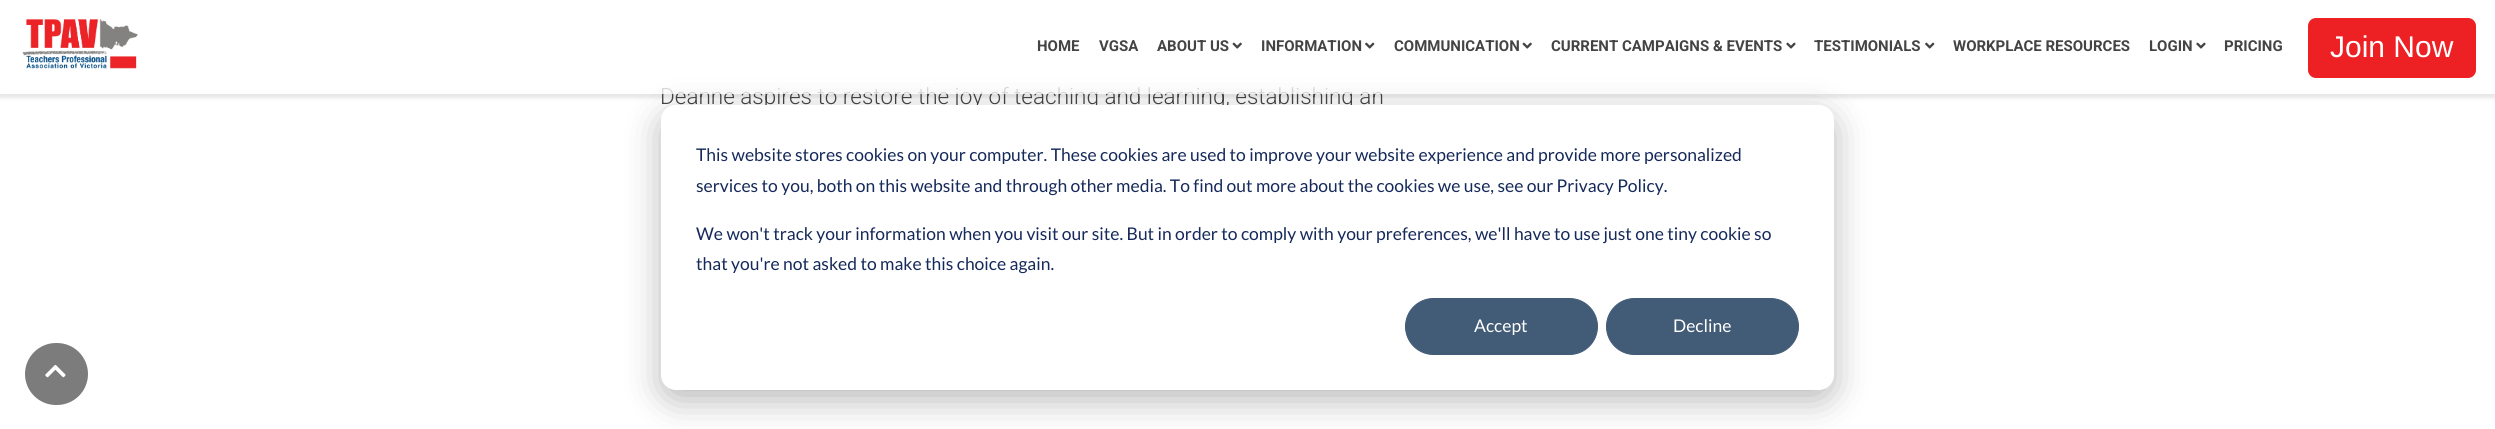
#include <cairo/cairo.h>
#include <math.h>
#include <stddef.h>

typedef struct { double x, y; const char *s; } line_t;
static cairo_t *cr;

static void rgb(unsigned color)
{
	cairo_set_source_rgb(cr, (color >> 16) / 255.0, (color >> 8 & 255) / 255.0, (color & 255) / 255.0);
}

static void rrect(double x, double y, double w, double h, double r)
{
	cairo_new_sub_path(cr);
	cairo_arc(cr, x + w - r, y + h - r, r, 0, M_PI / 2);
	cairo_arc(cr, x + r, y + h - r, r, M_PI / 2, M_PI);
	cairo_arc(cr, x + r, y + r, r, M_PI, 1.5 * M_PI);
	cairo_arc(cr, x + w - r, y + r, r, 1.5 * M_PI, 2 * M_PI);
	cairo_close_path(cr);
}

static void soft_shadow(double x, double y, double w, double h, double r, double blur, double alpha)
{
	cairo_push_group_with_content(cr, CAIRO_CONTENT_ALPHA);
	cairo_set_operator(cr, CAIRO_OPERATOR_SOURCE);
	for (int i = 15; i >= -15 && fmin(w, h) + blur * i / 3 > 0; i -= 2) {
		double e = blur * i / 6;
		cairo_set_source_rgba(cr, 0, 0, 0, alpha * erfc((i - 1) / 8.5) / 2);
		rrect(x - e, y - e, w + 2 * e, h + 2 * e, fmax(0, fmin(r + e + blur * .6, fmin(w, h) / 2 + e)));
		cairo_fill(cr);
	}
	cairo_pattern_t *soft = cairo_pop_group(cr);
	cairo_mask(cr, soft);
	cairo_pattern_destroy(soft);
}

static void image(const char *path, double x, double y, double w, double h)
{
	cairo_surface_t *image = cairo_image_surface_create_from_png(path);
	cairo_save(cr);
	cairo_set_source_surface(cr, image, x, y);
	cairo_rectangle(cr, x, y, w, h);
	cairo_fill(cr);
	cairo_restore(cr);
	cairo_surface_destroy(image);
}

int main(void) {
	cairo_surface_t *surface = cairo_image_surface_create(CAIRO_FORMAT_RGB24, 2495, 429);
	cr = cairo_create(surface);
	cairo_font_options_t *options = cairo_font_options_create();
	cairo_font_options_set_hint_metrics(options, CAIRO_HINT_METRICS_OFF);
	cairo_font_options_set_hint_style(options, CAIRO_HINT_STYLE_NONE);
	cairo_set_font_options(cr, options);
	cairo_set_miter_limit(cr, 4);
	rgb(0xffffff);
	cairo_paint(cr);
	cairo_save(cr);
	cairo_set_fill_rule(cr, CAIRO_FILL_RULE_EVEN_ODD);
	cairo_new_path(cr);
	cairo_move_to(cr, 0, 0);
	cairo_line_to(cr, 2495, 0);
	cairo_line_to(cr, 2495, 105);
	cairo_line_to(cr, 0, 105);
	cairo_close_path(cr);
	cairo_move_to(cr, 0, 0);
	cairo_line_to(cr, 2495, 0);
	cairo_line_to(cr, 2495, 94);
	cairo_line_to(cr, 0, 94);
	cairo_close_path(cr);
	cairo_clip(cr);
	rgb(0x000000);
	soft_shadow(-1, 1, 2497, 97, 0, 2, 0.1);
	cairo_restore(cr);
	image("img/1.png", 22, 19, 116, 50);
	image("img/2.png", 1232, 42, 10, 7);
	image("img/3.png", 1365, 42, 10, 7);
	image("img/2.png", 1522, 42, 10, 7);
	image("img/4.png", 1786, 42, 10, 7);
	image("img/3.png", 1925, 42, 10, 7);
	image("img/4.png", 2196, 42, 10, 7);
	rgb(0xed2124);
	rrect(2308, 18, 168, 60, 8);
	cairo_fill(cr);
	rgb(0x7c7c7c);
	rrect(25, 343, 63, 62, 31);
	cairo_fill(cr);
	image("img/5.png", 45, 365, 21, 13);
	cairo_select_font_face(cr, "Roboto", CAIRO_FONT_SLANT_NORMAL, CAIRO_FONT_WEIGHT_BOLD);
	cairo_set_font_size(cr, 15);
	rgb(0x444444);
	{
		static const line_t items[] = {
			{1037, 51, "HOME"},
			{1099, 51, "VGSA"},
			{1157, 51, "ABOUT US"},
			{1261, 51, "INFORMATION"},
			{1394, 51, "COMMUNICATION"},
			{1551, 51, "CURRENT CAMPAIGNS & EVENTS"},
			{1814, 51, "TESTIMONIALS"},
			{1953, 51, "WORKPLACE RESOURCES"},
			{2149, 51, "LOGIN"},
			{2224, 51, "PRICING"},
		};
		for (size_t i = 0; i < sizeof items / sizeof *items; i++) {
			cairo_move_to(cr, items[i].x, items[i].y);
			cairo_show_text(cr, items[i].s);
		}
	}
	cairo_select_font_face(cr, "Liberation Sans", CAIRO_FONT_SLANT_NORMAL, CAIRO_FONT_WEIGHT_NORMAL);
	cairo_set_font_size(cr, 30);
	rgb(0xffffff);
	cairo_move_to(cr, 2330, 57);
	cairo_show_text(cr, "Join Now");
	cairo_select_font_face(cr, "Roboto Light", CAIRO_FONT_SLANT_NORMAL, CAIRO_FONT_WEIGHT_NORMAL);
	cairo_set_font_size(cr, 22.5);
	rgb(0x444444);
	cairo_move_to(cr, 660, 104);
	cairo_show_text(cr, "Deanne aspires to restore the joy of teaching and learning, establishing an");
	cairo_set_source_rgba(cr, 1, 1, 1, 0.8);
	cairo_rectangle(cr, 0, 86, 2495, 8);
	cairo_fill(cr);
	rgb(0x000000);
	soft_shadow(661, 115, 1173, 285, 15, 17.5, 0.28);
	rgb(0xffffff);
	rrect(661, 105, 1173, 285, 15);
	cairo_fill(cr);
	cairo_select_font_face(cr, "Lato", CAIRO_FONT_SLANT_NORMAL, CAIRO_FONT_WEIGHT_NORMAL);
	cairo_set_font_size(cr, 17.5);
	rgb(0x15295a);
	{
		static const line_t items[] = {
			{696, 161, "This website stores cookies on your computer. These cookies are used to improve your website experience and provide more personalized"},
			{696, 192, "services to you, both on this website and through other media. To find out more about the cookies we use, see our Privacy Policy."},
			{696, 240, "We won't track your information when you visit our site. But in order to comply with your preferences, we'll have to use just one tiny cookie so"},
			{696, 270, "that you're not asked to make this choice again."},
		};
		for (size_t i = 0; i < sizeof items / sizeof *items; i++) {
			cairo_move_to(cr, items[i].x, items[i].y);
			cairo_show_text(cr, items[i].s);
		}
	}
	rgb(0x425b76);
	rrect(1405.5, 298.5, 192, 56, 28);
	cairo_fill_preserve(cr);
	cairo_set_line_width(cr, 1);
	cairo_stroke(cr);
	rgb(0xffffff);
	cairo_move_to(cr, 1474, 332);
	cairo_show_text(cr, "Accept");
	rgb(0x425b76);
	rrect(1606.5, 298.5, 192, 56, 28);
	cairo_fill_preserve(cr);
	cairo_stroke(cr);
	rgb(0xffffff);
	cairo_move_to(cr, 1673, 332);
	cairo_show_text(cr, "Decline");
	cairo_surface_write_to_png(surface, "page.png");
	cairo_font_options_destroy(options);
	cairo_destroy(cr);
	cairo_surface_destroy(surface);
	return 0;
}
